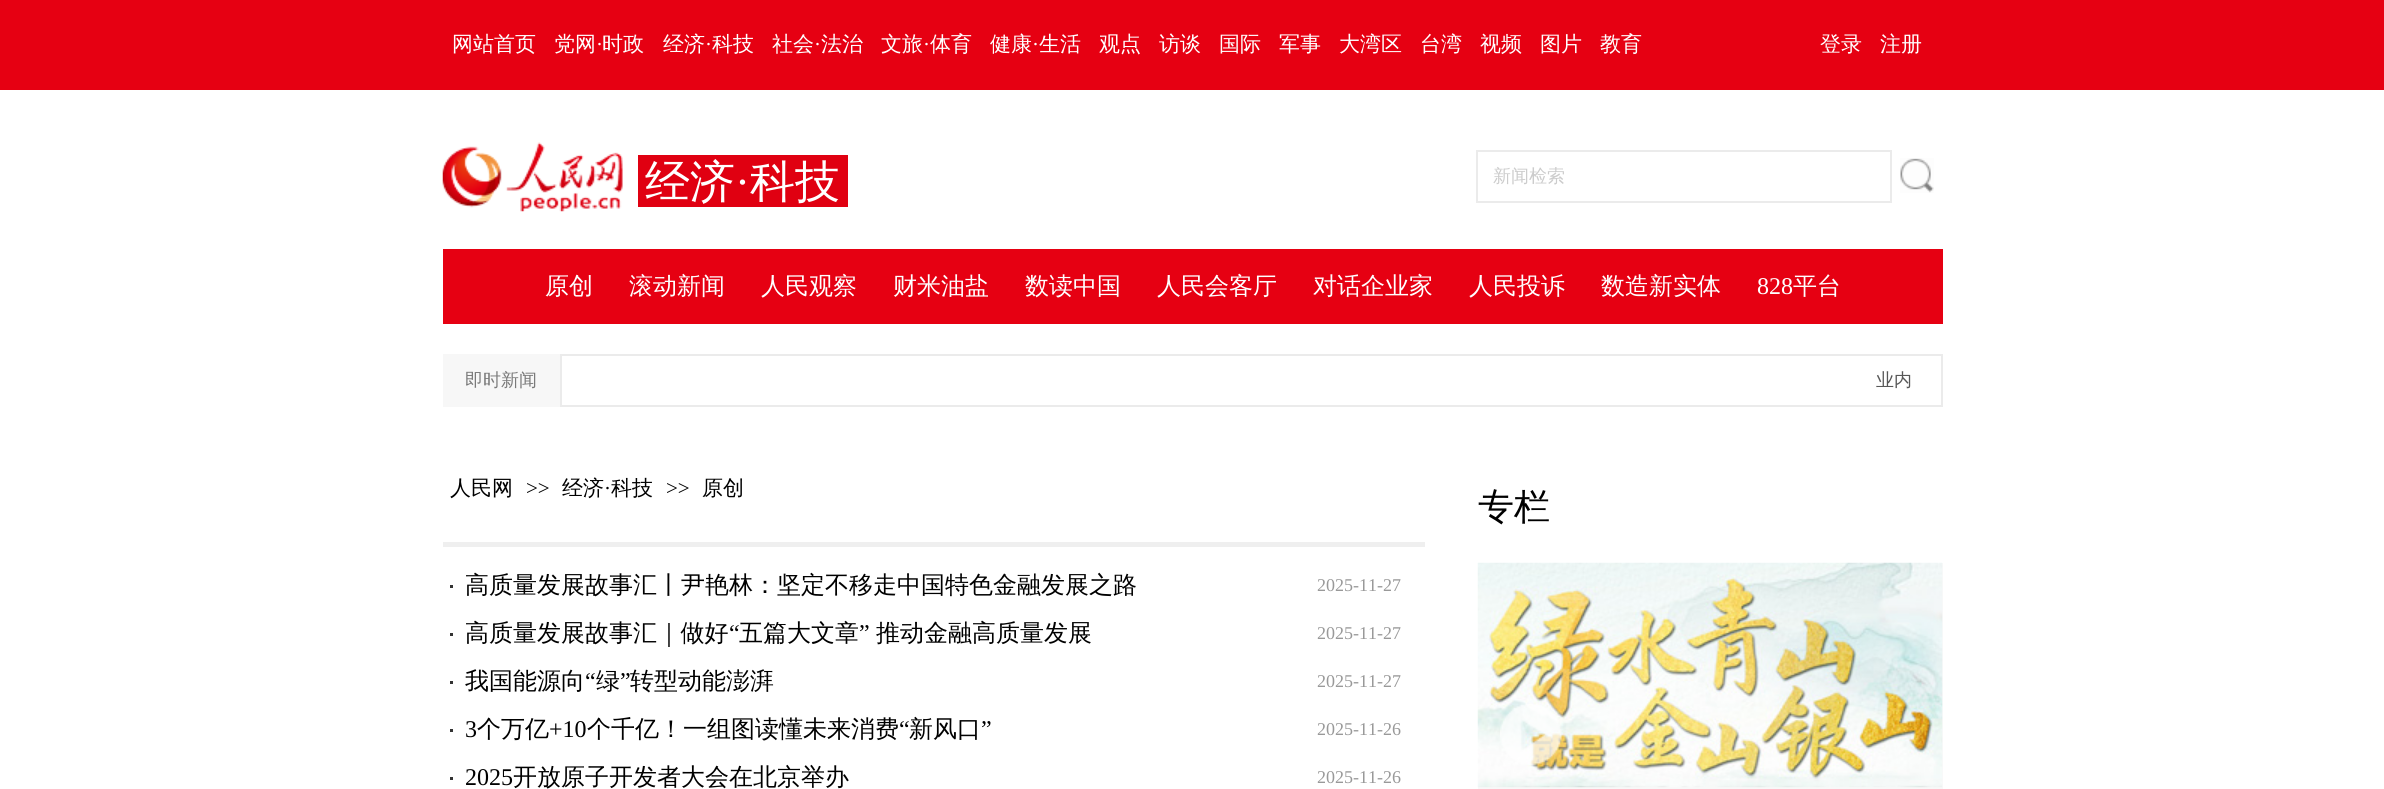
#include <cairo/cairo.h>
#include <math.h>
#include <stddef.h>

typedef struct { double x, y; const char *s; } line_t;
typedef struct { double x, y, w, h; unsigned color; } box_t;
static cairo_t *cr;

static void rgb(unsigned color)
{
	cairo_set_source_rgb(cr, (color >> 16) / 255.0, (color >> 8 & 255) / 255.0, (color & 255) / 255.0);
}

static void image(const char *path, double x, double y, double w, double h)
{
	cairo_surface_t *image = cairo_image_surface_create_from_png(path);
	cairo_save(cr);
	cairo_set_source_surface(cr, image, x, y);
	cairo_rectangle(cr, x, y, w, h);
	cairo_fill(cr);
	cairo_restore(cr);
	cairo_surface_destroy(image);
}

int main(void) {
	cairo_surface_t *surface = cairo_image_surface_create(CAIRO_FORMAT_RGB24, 2384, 789);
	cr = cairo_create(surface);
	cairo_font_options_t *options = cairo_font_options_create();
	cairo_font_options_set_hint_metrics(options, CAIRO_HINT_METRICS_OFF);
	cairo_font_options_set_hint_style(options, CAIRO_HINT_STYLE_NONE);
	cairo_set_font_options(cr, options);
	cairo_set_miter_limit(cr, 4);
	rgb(0xffffff);
	cairo_paint(cr);
	rgb(0xe60012);
	cairo_rectangle(cr, 0, 0, 2384, 90);
	cairo_fill(cr);
	image("img/1.png", 442, 142, 181, 70);
	rgb(0xe00011);
	cairo_rectangle(cr, 638, 155, 210, 52);
	cairo_fill(cr);
	cairo_rectangle(cr, 1477, 151, 414, 51);
	rgb(0xebebeb);
	cairo_stroke(cr);
	image("img/2.png", 1900, 158, 34, 35);
	rgb(0xe60012);
	cairo_rectangle(cr, 443, 249, 1500, 75);
	cairo_fill(cr);
	rgb(0xf7f7f7);
	cairo_rectangle(cr, 443, 354, 117, 53);
	cairo_fill(cr);
	cairo_rectangle(cr, 561, 355, 1381, 51);
	rgb(0xebebeb);
	cairo_stroke(cr);
	{
		static const box_t items[] = {
			{443, 542, 982, 5, 0xefefef},
			{450, 585, 3, 3, 0x333333},
			{450, 633, 3, 3, 0x333333},
			{450, 681, 3, 3, 0x333333},
			{450, 729, 3, 3, 0x333333},
			{450, 777, 3, 3, 0x333333},
			{1478, 563, 465, 226, 0xf8f8f8},
		};
		for (size_t i = 0; i < sizeof items / sizeof *items; i++) {
			rgb(items[i].color);
			cairo_rectangle(cr, items[i].x, items[i].y, items[i].w, items[i].h);
			cairo_fill(cr);
		}
	}
	image("img/3.png", 1477, 562, 466, 226);
	image("img/4.png", 1500, 704, 62, 61);
	cairo_select_font_face(cr, "WenQuanYi Zen Hei Medium", CAIRO_FONT_SLANT_NORMAL, CAIRO_FONT_WEIGHT_NORMAL);
	cairo_set_font_size(cr, 21);
	rgb(0xffffff);
	cairo_move_to(cr, 452, 51);
	cairo_show_text(cr, "网站首页");
	cairo_move_to(cr, 554, 51);
	cairo_show_text(cr, "党网");
	cairo_select_font_face(cr, "Liberation Serif", CAIRO_FONT_SLANT_NORMAL, CAIRO_FONT_WEIGHT_NORMAL);
	cairo_move_to(cr, 596, 51);
	cairo_show_text(cr, "·");
	cairo_select_font_face(cr, "WenQuanYi Zen Hei Medium", CAIRO_FONT_SLANT_NORMAL, CAIRO_FONT_WEIGHT_NORMAL);
	cairo_move_to(cr, 602, 51);
	cairo_show_text(cr, "时政");
	cairo_move_to(cr, 663, 51);
	cairo_show_text(cr, "经济");
	cairo_select_font_face(cr, "Liberation Serif", CAIRO_FONT_SLANT_NORMAL, CAIRO_FONT_WEIGHT_NORMAL);
	cairo_move_to(cr, 705, 51);
	cairo_show_text(cr, "·");
	cairo_select_font_face(cr, "WenQuanYi Zen Hei Medium", CAIRO_FONT_SLANT_NORMAL, CAIRO_FONT_WEIGHT_NORMAL);
	cairo_move_to(cr, 712, 51);
	cairo_show_text(cr, "科技");
	cairo_move_to(cr, 772, 51);
	cairo_show_text(cr, "社会");
	cairo_select_font_face(cr, "Liberation Serif", CAIRO_FONT_SLANT_NORMAL, CAIRO_FONT_WEIGHT_NORMAL);
	cairo_move_to(cr, 814, 51);
	cairo_show_text(cr, "·");
	cairo_select_font_face(cr, "WenQuanYi Zen Hei Medium", CAIRO_FONT_SLANT_NORMAL, CAIRO_FONT_WEIGHT_NORMAL);
	cairo_move_to(cr, 821, 51);
	cairo_show_text(cr, "法治");
	cairo_move_to(cr, 881, 51);
	cairo_show_text(cr, "文旅");
	cairo_select_font_face(cr, "Liberation Serif", CAIRO_FONT_SLANT_NORMAL, CAIRO_FONT_WEIGHT_NORMAL);
	cairo_move_to(cr, 923, 51);
	cairo_show_text(cr, "·");
	cairo_select_font_face(cr, "WenQuanYi Zen Hei Medium", CAIRO_FONT_SLANT_NORMAL, CAIRO_FONT_WEIGHT_NORMAL);
	cairo_move_to(cr, 930, 51);
	cairo_show_text(cr, "体育");
	cairo_move_to(cr, 990, 51);
	cairo_show_text(cr, "健康");
	cairo_select_font_face(cr, "Liberation Serif", CAIRO_FONT_SLANT_NORMAL, CAIRO_FONT_WEIGHT_NORMAL);
	cairo_move_to(cr, 1032, 51);
	cairo_show_text(cr, "·");
	cairo_select_font_face(cr, "WenQuanYi Zen Hei Medium", CAIRO_FONT_SLANT_NORMAL, CAIRO_FONT_WEIGHT_NORMAL);
	{
		static const line_t items[] = {
			{1039, 51, "生活"},
			{1099, 51, "观点"},
			{1159, 51, "访谈"},
			{1219, 51, "国际"},
			{1279, 51, "军事"},
			{1339, 51, "大湾区"},
			{1420, 51, "台湾"},
			{1480, 51, "视频"},
			{1540, 51, "图片"},
			{1600, 51, "教育"},
			{1820, 51, "登录"},
			{1880, 51, "注册"},
		};
		for (size_t i = 0; i < sizeof items / sizeof *items; i++) {
			cairo_move_to(cr, items[i].x, items[i].y);
			cairo_show_text(cr, items[i].s);
		}
	}
	cairo_set_font_size(cr, 45);
	cairo_move_to(cr, 645, 197);
	cairo_show_text(cr, "经济");
	cairo_select_font_face(cr, "Liberation Serif", CAIRO_FONT_SLANT_NORMAL, CAIRO_FONT_WEIGHT_NORMAL);
	cairo_move_to(cr, 735, 197);
	cairo_show_text(cr, "·");
	cairo_select_font_face(cr, "WenQuanYi Zen Hei Medium", CAIRO_FONT_SLANT_NORMAL, CAIRO_FONT_WEIGHT_NORMAL);
	cairo_move_to(cr, 750, 197);
	cairo_show_text(cr, "科技");
	cairo_set_font_size(cr, 18);
	rgb(0xcccccc);
	cairo_move_to(cr, 1493, 182);
	cairo_show_text(cr, "新闻检索");
	cairo_set_font_size(cr, 24);
	rgb(0xffffff);
	{
		static const line_t items[] = {
			{545, 294, "原创"},
			{629, 294, "滚动新闻"},
			{761, 294, "人民观察"},
			{893, 294, "财米油盐"},
			{1025, 294, "数读中国"},
			{1157, 294, "人民会客厅"},
			{1313, 294, "对话企业家"},
			{1469, 294, "人民投诉"},
			{1601, 294, "数造新实体"},
		};
		for (size_t i = 0; i < sizeof items / sizeof *items; i++) {
			cairo_move_to(cr, items[i].x, items[i].y);
			cairo_show_text(cr, items[i].s);
		}
	}
	cairo_select_font_face(cr, "Liberation Serif", CAIRO_FONT_SLANT_NORMAL, CAIRO_FONT_WEIGHT_NORMAL);
	cairo_move_to(cr, 1757, 294);
	cairo_show_text(cr, "828");
	cairo_select_font_face(cr, "WenQuanYi Zen Hei Medium", CAIRO_FONT_SLANT_NORMAL, CAIRO_FONT_WEIGHT_NORMAL);
	cairo_move_to(cr, 1793, 294);
	cairo_show_text(cr, "平台");
	cairo_set_font_size(cr, 18);
	rgb(0x7a7a7a);
	cairo_move_to(cr, 465, 386);
	cairo_show_text(cr, "即时新闻");
	rgb(0x575757);
	cairo_move_to(cr, 1876, 386);
	cairo_show_text(cr, "业内");
	cairo_set_font_size(cr, 21);
	rgb(0x000000);
	cairo_move_to(cr, 450, 495);
	cairo_show_text(cr, "人民网");
	cairo_select_font_face(cr, "Liberation Serif", CAIRO_FONT_SLANT_NORMAL, CAIRO_FONT_WEIGHT_NORMAL);
	cairo_move_to(cr, 526, 495);
	cairo_show_text(cr, ">>");
	cairo_select_font_face(cr, "WenQuanYi Zen Hei Medium", CAIRO_FONT_SLANT_NORMAL, CAIRO_FONT_WEIGHT_NORMAL);
	cairo_move_to(cr, 562, 495);
	cairo_show_text(cr, "经济");
	cairo_select_font_face(cr, "Liberation Serif", CAIRO_FONT_SLANT_NORMAL, CAIRO_FONT_WEIGHT_NORMAL);
	cairo_move_to(cr, 604, 495);
	cairo_show_text(cr, "·");
	cairo_select_font_face(cr, "WenQuanYi Zen Hei Medium", CAIRO_FONT_SLANT_NORMAL, CAIRO_FONT_WEIGHT_NORMAL);
	cairo_move_to(cr, 611, 495);
	cairo_show_text(cr, "科技");
	cairo_select_font_face(cr, "Liberation Serif", CAIRO_FONT_SLANT_NORMAL, CAIRO_FONT_WEIGHT_NORMAL);
	cairo_move_to(cr, 666, 495);
	cairo_show_text(cr, ">>");
	cairo_select_font_face(cr, "WenQuanYi Zen Hei Medium", CAIRO_FONT_SLANT_NORMAL, CAIRO_FONT_WEIGHT_NORMAL);
	cairo_move_to(cr, 702, 495);
	cairo_show_text(cr, "原创");
	cairo_set_font_size(cr, 24);
	cairo_move_to(cr, 465, 593);
	cairo_show_text(cr, "高质量发展故事汇丨尹艳林：坚定不移走中国特色金融发展之路");
	cairo_select_font_face(cr, "Liberation Serif", CAIRO_FONT_SLANT_NORMAL, CAIRO_FONT_WEIGHT_NORMAL);
	cairo_set_font_size(cr, 18);
	rgb(0x999999);
	cairo_move_to(cr, 1317, 591);
	cairo_show_text(cr, "2025-11-27");
	cairo_select_font_face(cr, "WenQuanYi Zen Hei Medium", CAIRO_FONT_SLANT_NORMAL, CAIRO_FONT_WEIGHT_NORMAL);
	cairo_set_font_size(cr, 24);
	rgb(0x000000);
	cairo_move_to(cr, 465, 641);
	cairo_show_text(cr, "高质量发展故事汇｜做好");
	cairo_select_font_face(cr, "Liberation Serif", CAIRO_FONT_SLANT_NORMAL, CAIRO_FONT_WEIGHT_NORMAL);
	cairo_move_to(cr, 729, 641);
	cairo_show_text(cr, "“");
	cairo_select_font_face(cr, "WenQuanYi Zen Hei Medium", CAIRO_FONT_SLANT_NORMAL, CAIRO_FONT_WEIGHT_NORMAL);
	cairo_move_to(cr, 739, 641);
	cairo_show_text(cr, "五篇大文章");
	cairo_select_font_face(cr, "Liberation Serif", CAIRO_FONT_SLANT_NORMAL, CAIRO_FONT_WEIGHT_NORMAL);
	cairo_move_to(cr, 859, 641);
	cairo_show_text(cr, "”");
	cairo_select_font_face(cr, "WenQuanYi Zen Hei Medium", CAIRO_FONT_SLANT_NORMAL, CAIRO_FONT_WEIGHT_NORMAL);
	cairo_move_to(cr, 876, 641);
	cairo_show_text(cr, "推动金融高质量发展");
	cairo_select_font_face(cr, "Liberation Serif", CAIRO_FONT_SLANT_NORMAL, CAIRO_FONT_WEIGHT_NORMAL);
	cairo_set_font_size(cr, 18);
	rgb(0x999999);
	cairo_move_to(cr, 1317, 639);
	cairo_show_text(cr, "2025-11-27");
	cairo_select_font_face(cr, "WenQuanYi Zen Hei Medium", CAIRO_FONT_SLANT_NORMAL, CAIRO_FONT_WEIGHT_NORMAL);
	cairo_set_font_size(cr, 24);
	rgb(0x000000);
	cairo_move_to(cr, 465, 689);
	cairo_show_text(cr, "我国能源向");
	cairo_select_font_face(cr, "Liberation Serif", CAIRO_FONT_SLANT_NORMAL, CAIRO_FONT_WEIGHT_NORMAL);
	cairo_move_to(cr, 585, 689);
	cairo_show_text(cr, "“");
	cairo_select_font_face(cr, "WenQuanYi Zen Hei Medium", CAIRO_FONT_SLANT_NORMAL, CAIRO_FONT_WEIGHT_NORMAL);
	cairo_move_to(cr, 596, 689);
	cairo_show_text(cr, "绿");
	cairo_select_font_face(cr, "Liberation Serif", CAIRO_FONT_SLANT_NORMAL, CAIRO_FONT_WEIGHT_NORMAL);
	cairo_move_to(cr, 620, 689);
	cairo_show_text(cr, "”");
	cairo_select_font_face(cr, "WenQuanYi Zen Hei Medium", CAIRO_FONT_SLANT_NORMAL, CAIRO_FONT_WEIGHT_NORMAL);
	cairo_move_to(cr, 630, 689);
	cairo_show_text(cr, "转型动能澎湃");
	cairo_select_font_face(cr, "Liberation Serif", CAIRO_FONT_SLANT_NORMAL, CAIRO_FONT_WEIGHT_NORMAL);
	cairo_set_font_size(cr, 18);
	rgb(0x999999);
	cairo_move_to(cr, 1317, 687);
	cairo_show_text(cr, "2025-11-27");
	cairo_set_font_size(cr, 24);
	rgb(0x000000);
	cairo_move_to(cr, 465, 737);
	cairo_show_text(cr, "3");
	cairo_select_font_face(cr, "WenQuanYi Zen Hei Medium", CAIRO_FONT_SLANT_NORMAL, CAIRO_FONT_WEIGHT_NORMAL);
	cairo_move_to(cr, 477, 737);
	cairo_show_text(cr, "个万亿");
	cairo_select_font_face(cr, "Liberation Serif", CAIRO_FONT_SLANT_NORMAL, CAIRO_FONT_WEIGHT_NORMAL);
	cairo_move_to(cr, 549, 737);
	cairo_show_text(cr, "+10");
	cairo_select_font_face(cr, "WenQuanYi Zen Hei Medium", CAIRO_FONT_SLANT_NORMAL, CAIRO_FONT_WEIGHT_NORMAL);
	cairo_move_to(cr, 587, 737);
	cairo_show_text(cr, "个千亿！一组图读懂未来消费");
	cairo_select_font_face(cr, "Liberation Serif", CAIRO_FONT_SLANT_NORMAL, CAIRO_FONT_WEIGHT_NORMAL);
	cairo_move_to(cr, 899, 737);
	cairo_show_text(cr, "“");
	cairo_select_font_face(cr, "WenQuanYi Zen Hei Medium", CAIRO_FONT_SLANT_NORMAL, CAIRO_FONT_WEIGHT_NORMAL);
	cairo_move_to(cr, 909, 737);
	cairo_show_text(cr, "新风口");
	cairo_select_font_face(cr, "Liberation Serif", CAIRO_FONT_SLANT_NORMAL, CAIRO_FONT_WEIGHT_NORMAL);
	cairo_move_to(cr, 981, 737);
	cairo_show_text(cr, "”");
	cairo_set_font_size(cr, 18);
	rgb(0x999999);
	cairo_move_to(cr, 1317, 735);
	cairo_show_text(cr, "2025-11-26");
	cairo_set_font_size(cr, 24);
	rgb(0x000000);
	cairo_move_to(cr, 465, 785);
	cairo_show_text(cr, "2025");
	cairo_select_font_face(cr, "WenQuanYi Zen Hei Medium", CAIRO_FONT_SLANT_NORMAL, CAIRO_FONT_WEIGHT_NORMAL);
	cairo_move_to(cr, 513, 785);
	cairo_show_text(cr, "开放原子开发者大会在北京举办");
	cairo_select_font_face(cr, "Liberation Serif", CAIRO_FONT_SLANT_NORMAL, CAIRO_FONT_WEIGHT_NORMAL);
	cairo_set_font_size(cr, 18);
	rgb(0x999999);
	cairo_move_to(cr, 1317, 783);
	cairo_show_text(cr, "2025-11-26");
	cairo_select_font_face(cr, "WenQuanYi Zen Hei Medium", CAIRO_FONT_SLANT_NORMAL, CAIRO_FONT_WEIGHT_NORMAL);
	cairo_set_font_size(cr, 36);
	rgb(0x000000);
	cairo_move_to(cr, 1478, 519);
	cairo_show_text(cr, "专栏");
	cairo_surface_write_to_png(surface, "page.png");
	cairo_font_options_destroy(options);
	cairo_destroy(cr);
	cairo_surface_destroy(surface);
	return 0;
}
